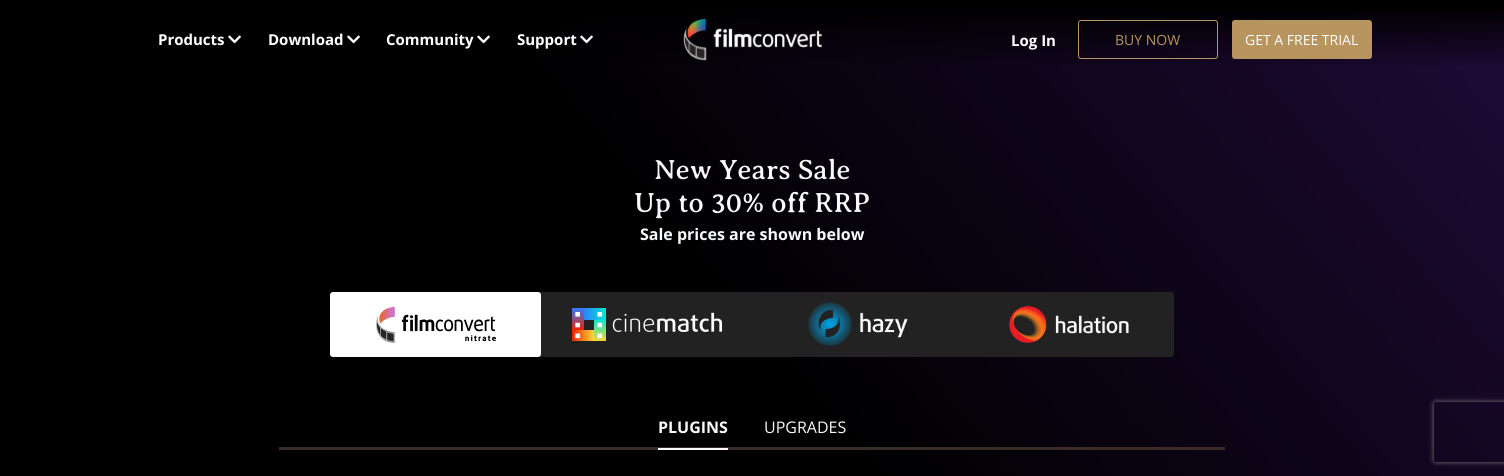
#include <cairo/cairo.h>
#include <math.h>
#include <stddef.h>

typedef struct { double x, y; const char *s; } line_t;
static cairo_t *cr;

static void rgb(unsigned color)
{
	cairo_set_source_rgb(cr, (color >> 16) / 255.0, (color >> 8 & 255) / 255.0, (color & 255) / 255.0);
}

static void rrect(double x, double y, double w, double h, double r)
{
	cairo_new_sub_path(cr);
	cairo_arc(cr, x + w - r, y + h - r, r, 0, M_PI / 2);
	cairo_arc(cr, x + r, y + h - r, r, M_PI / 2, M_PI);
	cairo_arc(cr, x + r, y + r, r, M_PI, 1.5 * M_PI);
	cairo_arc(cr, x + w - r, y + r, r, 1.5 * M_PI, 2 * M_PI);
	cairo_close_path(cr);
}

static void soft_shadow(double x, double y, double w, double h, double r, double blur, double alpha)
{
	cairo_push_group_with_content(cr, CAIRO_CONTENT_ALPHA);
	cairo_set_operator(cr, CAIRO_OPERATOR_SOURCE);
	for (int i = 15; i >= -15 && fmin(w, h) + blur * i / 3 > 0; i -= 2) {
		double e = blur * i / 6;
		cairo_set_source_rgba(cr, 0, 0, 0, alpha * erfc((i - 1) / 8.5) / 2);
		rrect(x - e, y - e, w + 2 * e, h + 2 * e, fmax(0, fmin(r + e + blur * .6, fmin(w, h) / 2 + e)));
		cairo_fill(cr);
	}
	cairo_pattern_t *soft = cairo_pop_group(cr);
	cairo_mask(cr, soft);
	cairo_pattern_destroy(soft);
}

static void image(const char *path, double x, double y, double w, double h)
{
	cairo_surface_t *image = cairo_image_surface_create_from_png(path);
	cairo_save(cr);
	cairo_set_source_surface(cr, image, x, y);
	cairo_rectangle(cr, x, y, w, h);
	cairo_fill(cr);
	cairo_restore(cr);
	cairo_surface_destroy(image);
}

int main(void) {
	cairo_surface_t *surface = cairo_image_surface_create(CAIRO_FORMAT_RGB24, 1504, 476);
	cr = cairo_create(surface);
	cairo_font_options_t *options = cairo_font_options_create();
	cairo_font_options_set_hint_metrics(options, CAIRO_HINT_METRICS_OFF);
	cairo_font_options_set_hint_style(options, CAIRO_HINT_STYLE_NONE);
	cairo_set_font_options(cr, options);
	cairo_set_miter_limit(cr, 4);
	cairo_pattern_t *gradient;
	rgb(0xffffff);
	cairo_paint(cr);
	gradient = cairo_pattern_create_linear(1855, -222, -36, 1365);
	cairo_pattern_add_color_stop_rgba(gradient, 0, 0.184, 0.063, 0.329, 1);
	cairo_pattern_add_color_stop_rgba(gradient, 0.49, 0, 0, 0, 1);
	cairo_set_source(cr, gradient);
	cairo_pattern_destroy(gradient);
	cairo_rectangle(cr, 0, 7, 1504, 469);
	cairo_fill(cr);
	gradient = cairo_pattern_create_linear(752, 0, 752, 68);
	cairo_pattern_add_color_stop_rgba(gradient, 0.1, 0, 0, 0, 1);
	cairo_pattern_add_color_stop_rgba(gradient, 1, 0, 0, 0, 0);
	cairo_set_source(cr, gradient);
	cairo_pattern_destroy(gradient);
	cairo_rectangle(cr, 0, 0, 1504, 65);
	cairo_fill(cr);
	image("img/1.png", 228, 35, 13, 9);
	image("img/1.png", 347, 35, 13, 9);
	image("img/1.png", 477, 35, 13, 9);
	image("img/2.png", 580, 35, 13, 9);
	image("img/3.png", 683, 18, 139, 43);
	rrect(1078.5, 20.5, 139, 38, 2.5);
	rgb(0xb8945e);
	cairo_set_line_width(cr, 1);
	cairo_stroke(cr);
	rrect(1232.5, 20.5, 139, 38, 2.5);
	cairo_fill_preserve(cr);
	cairo_stroke(cr);
	rgb(0x222222);
	rrect(330, 292, 844, 65, 3);
	cairo_fill(cr);
	rgb(0xffffff);
	rrect(330, 292, 211, 65, 3);
	cairo_fill(cr);
	image("img/4.png", 376, 307, 120, 36);
	image("img/5.png", 572, 308, 150, 33);
	image("img/6.png", 808, 302, 100, 44);
	image("img/7.png", 1009, 306, 120, 37);
	rgb(0x392c26);
	cairo_rectangle(cr, 279, 447, 946, 3);
	cairo_fill(cr);
	rgb(0xf8f9fa);
	cairo_rectangle(cr, 658, 448, 70, 2);
	cairo_fill(cr);
	cairo_save(cr);
	cairo_set_fill_rule(cr, CAIRO_FILL_RULE_EVEN_ODD);
	cairo_new_path(cr);
	cairo_move_to(cr, 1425, 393);
	cairo_line_to(cr, 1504, 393);
	cairo_line_to(cr, 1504, 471);
	cairo_line_to(cr, 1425, 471);
	cairo_close_path(cr);
	cairo_move_to(cr, 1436, 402);
	cairo_line_to(cr, 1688, 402);
	cairo_curve_to(cr, 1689, 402, 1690, 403, 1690, 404);
	cairo_line_to(cr, 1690, 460);
	cairo_curve_to(cr, 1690, 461, 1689, 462, 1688, 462);
	cairo_line_to(cr, 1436, 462);
	cairo_curve_to(cr, 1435, 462, 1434, 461, 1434, 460);
	cairo_line_to(cr, 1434, 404);
	cairo_curve_to(cr, 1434, 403, 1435, 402, 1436, 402);
	cairo_close_path(cr);
	cairo_clip(cr);
	rgb(0x808080);
	soft_shadow(1434, 402, 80, 60, 2, 2.5, 1);
	cairo_restore(cr);
	cairo_select_font_face(cr, "Open Sans", CAIRO_FONT_SLANT_NORMAL, CAIRO_FONT_WEIGHT_BOLD);
	cairo_set_font_size(cr, 15);
	rgb(0xffffff);
	{
		static const line_t items[] = {
			{158, 45, "Products"},
			{268, 45, "Download"},
			{386, 45, "Community"},
			{517, 45, "Support"},
			{1011, 46, "Log In"},
		};
		for (size_t i = 0; i < sizeof items / sizeof *items; i++) {
			cairo_move_to(cr, items[i].x, items[i].y);
			cairo_show_text(cr, items[i].s);
		}
	}
	cairo_select_font_face(cr, "Open Sans", CAIRO_FONT_SLANT_NORMAL, CAIRO_FONT_WEIGHT_NORMAL);
	cairo_set_font_size(cr, 14);
	rgb(0xb8945e);
	cairo_move_to(cr, 1115, 45);
	cairo_show_text(cr, "BUY NOW");
	rgb(0xffffff);
	cairo_move_to(cr, 1245, 45);
	cairo_show_text(cr, "GET A FREE TRIAL");
	cairo_select_font_face(cr, "Averia Serif Libre", CAIRO_FONT_SLANT_NORMAL, CAIRO_FONT_WEIGHT_NORMAL);
	cairo_set_font_size(cr, 28);
	rgb(0xf8f9fa);
	cairo_move_to(cr, 654, 179);
	cairo_show_text(cr, "New Years Sale");
	cairo_move_to(cr, 634, 212);
	cairo_show_text(cr, "Up to 30% off RRP");
	cairo_select_font_face(cr, "Open Sans", CAIRO_FONT_SLANT_NORMAL, CAIRO_FONT_WEIGHT_BOLD);
	cairo_set_font_size(cr, 16);
	cairo_move_to(cr, 640, 240);
	cairo_show_text(cr, "Sale prices are shown below");
	cairo_move_to(cr, 658, 433);
	cairo_show_text(cr, "PLUGINS");
	cairo_select_font_face(cr, "Open Sans", CAIRO_FONT_SLANT_NORMAL, CAIRO_FONT_WEIGHT_NORMAL);
	cairo_move_to(cr, 764, 433);
	cairo_show_text(cr, "UPGRADES");
	cairo_surface_write_to_png(surface, "page.png");
	cairo_font_options_destroy(options);
	cairo_destroy(cr);
	cairo_surface_destroy(surface);
	return 0;
}
